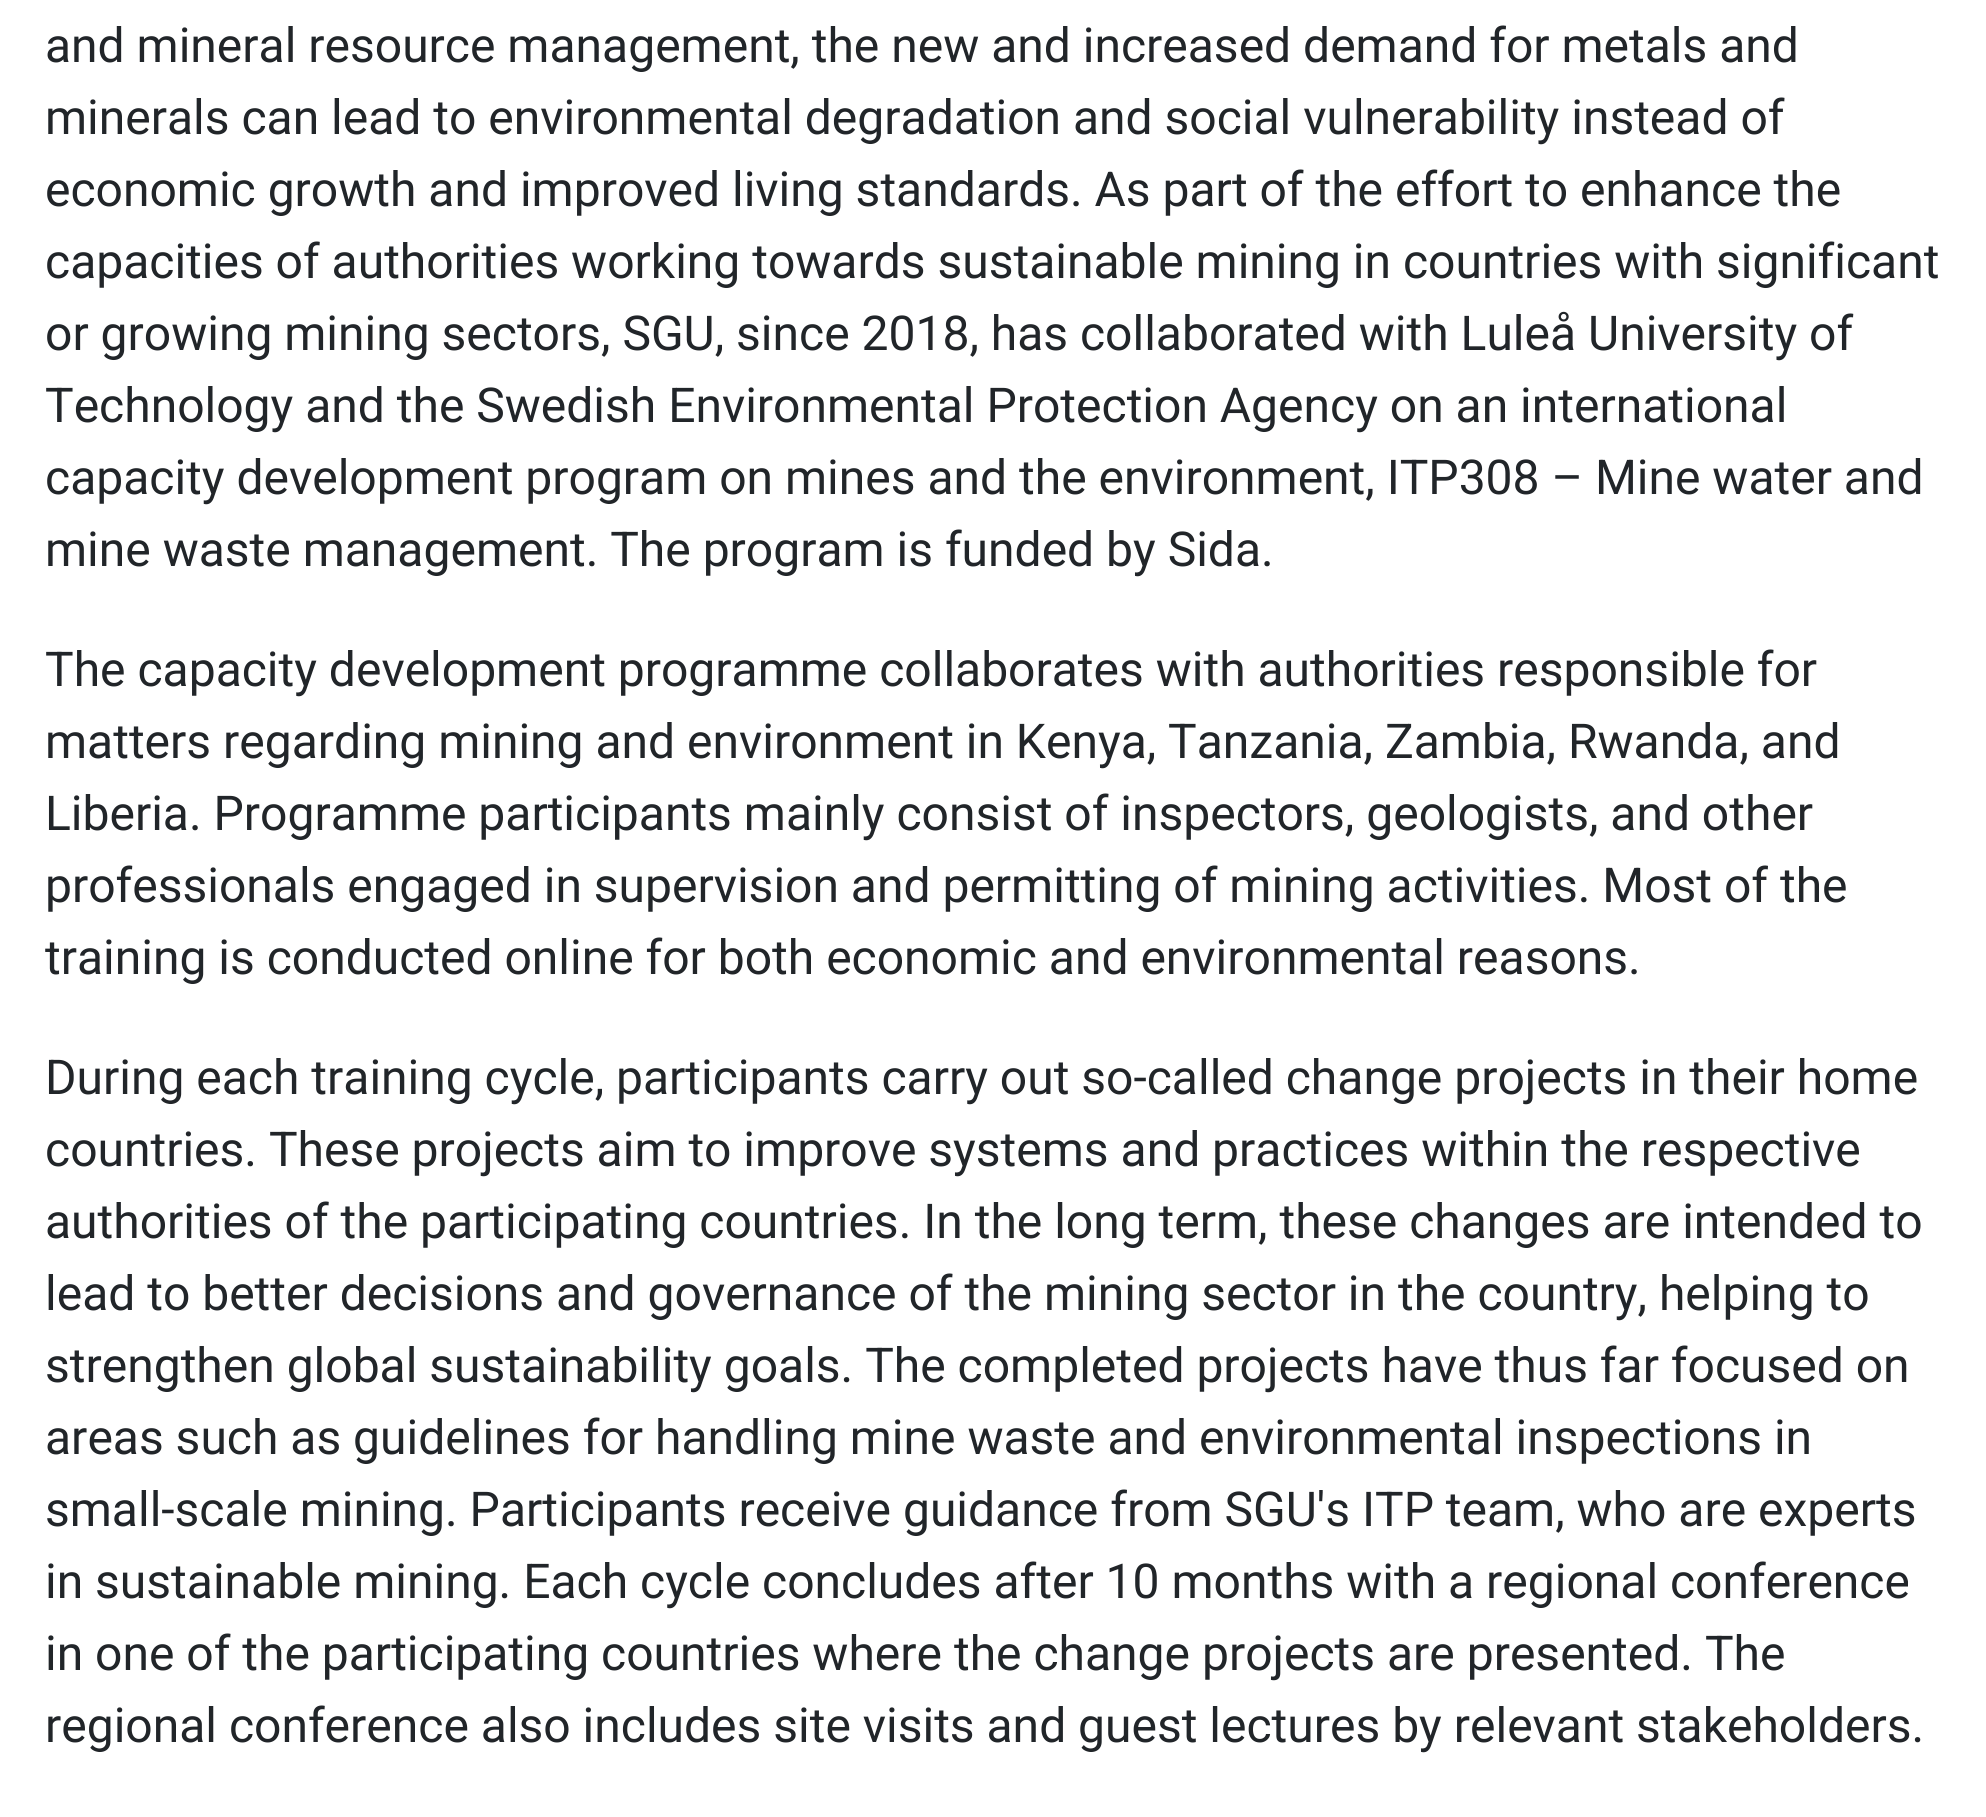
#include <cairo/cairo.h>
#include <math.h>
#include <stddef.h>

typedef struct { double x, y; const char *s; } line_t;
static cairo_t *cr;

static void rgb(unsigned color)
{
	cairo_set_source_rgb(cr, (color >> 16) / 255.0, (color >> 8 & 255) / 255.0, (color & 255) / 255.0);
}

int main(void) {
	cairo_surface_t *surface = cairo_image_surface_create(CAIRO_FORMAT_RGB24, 1986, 1817);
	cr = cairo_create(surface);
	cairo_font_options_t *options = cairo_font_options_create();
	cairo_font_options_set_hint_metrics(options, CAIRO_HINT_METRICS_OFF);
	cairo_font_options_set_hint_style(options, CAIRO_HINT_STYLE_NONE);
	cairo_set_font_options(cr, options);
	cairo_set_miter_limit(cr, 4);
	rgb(0xffffff);
	cairo_paint(cr);
	cairo_select_font_face(cr, "Roboto", CAIRO_FONT_SLANT_NORMAL, CAIRO_FONT_WEIGHT_NORMAL);
	cairo_set_font_size(cr, 48);
	rgb(0x212529);
	{
		static const line_t items[] = {
			{45, 62, "and mineral resource management, the new and increased demand for metals and"},
			{45, 134, "minerals can lead to environmental degradation and social vulnerability instead of"},
			{45, 206, "economic growth and improved living standards. As part of the effort to enhance the"},
			{45, 278, "capacities of authorities working towards sustainable mining in countries with significant"},
			{45, 350, "or growing mining sectors, SGU, since 2018, has collaborated with Luleå University of"},
			{45, 422, "Technology and the Swedish Environmental Protection Agency on an international"},
			{45, 494, "capacity development program on mines and the environment, ITP308 – Mine water and"},
			{45, 566, "mine waste management. The program is funded by Sida."},
			{45, 686, "The capacity development programme collaborates with authorities responsible for"},
			{45, 758, "matters regarding mining and environment in Kenya, Tanzania, Zambia, Rwanda, and"},
			{45, 830, "Liberia. Programme participants mainly consist of inspectors, geologists, and other"},
			{45, 902, "professionals engaged in supervision and permitting of mining activities. Most of the"},
			{45, 974, "training is conducted online for both economic and environmental reasons."},
			{45, 1094, "During each training cycle, participants carry out so-called change projects in their home"},
			{45, 1166, "countries. These projects aim to improve systems and practices within the respective"},
			{45, 1238, "authorities of the participating countries. In the long term, these changes are intended to"},
			{45, 1310, "lead to better decisions and governance of the mining sector in the country, helping to"},
			{45, 1382, "strengthen global sustainability goals. The completed projects have thus far focused on"},
			{45, 1454, "areas such as guidelines for handling mine waste and environmental inspections in"},
			{45, 1526, "small-scale mining. Participants receive guidance from SGU's ITP team, who are experts"},
			{45, 1598, "in sustainable mining. Each cycle concludes after 10 months with a regional conference"},
			{45, 1670, "in one of the participating countries where the change projects are presented. The"},
			{45, 1742, "regional conference also includes site visits and guest lectures by relevant stakeholders."},
		};
		for (size_t i = 0; i < sizeof items / sizeof *items; i++) {
			cairo_move_to(cr, items[i].x, items[i].y);
			cairo_show_text(cr, items[i].s);
		}
	}
	cairo_surface_write_to_png(surface, "page.png");
	cairo_font_options_destroy(options);
	cairo_destroy(cr);
	cairo_surface_destroy(surface);
	return 0;
}
